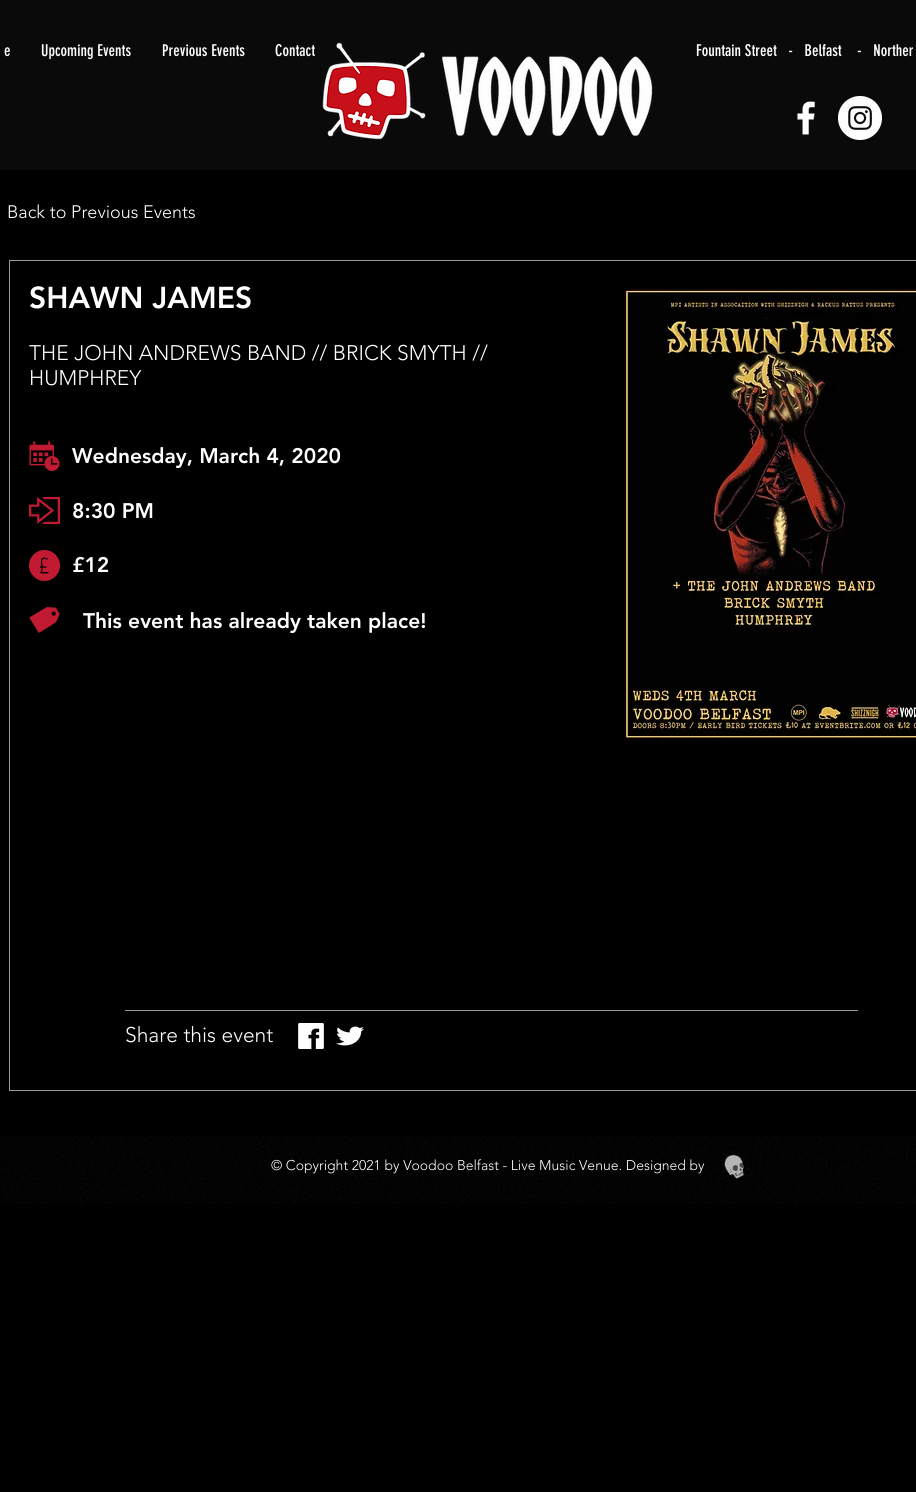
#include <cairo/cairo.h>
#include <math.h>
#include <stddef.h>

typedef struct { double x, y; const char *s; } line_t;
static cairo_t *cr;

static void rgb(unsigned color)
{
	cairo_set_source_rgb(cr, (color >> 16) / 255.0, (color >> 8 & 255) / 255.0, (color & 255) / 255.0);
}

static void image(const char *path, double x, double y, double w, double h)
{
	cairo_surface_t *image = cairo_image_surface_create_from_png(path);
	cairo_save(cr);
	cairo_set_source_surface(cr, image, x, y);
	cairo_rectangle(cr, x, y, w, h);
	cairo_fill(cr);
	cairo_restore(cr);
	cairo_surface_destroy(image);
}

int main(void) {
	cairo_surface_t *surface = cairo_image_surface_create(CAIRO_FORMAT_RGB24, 916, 1492);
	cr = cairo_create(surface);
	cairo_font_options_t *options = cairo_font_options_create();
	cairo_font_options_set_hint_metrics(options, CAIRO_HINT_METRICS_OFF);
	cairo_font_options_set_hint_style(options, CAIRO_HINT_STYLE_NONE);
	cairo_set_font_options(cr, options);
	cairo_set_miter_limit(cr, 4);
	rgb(0x000000);
	cairo_paint(cr);
	rgb(0x0a0a0a);
	cairo_rectangle(cr, 0, 0, 916, 170);
	cairo_fill(cr);
	image("img/1.png", 322, 42, 331, 98);
	image("img/2.png", 797, 101, 18, 34);
	image("img/3.png", 838, 96, 44, 44);
	cairo_rectangle(cr, 9.5, 260.5, 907, 830);
	rgb(0x999997);
	cairo_set_line_width(cr, 1);
	cairo_stroke(cr);
	image("img/4.png", 624, 288, 292, 456);
	image("img/5.png", 29, 441, 31, 30);
	image("img/6.png", 29, 497, 31, 27);
	image("img/7.png", 29, 550, 31, 31);
	image("img/8.png", 29, 607, 31, 26);
	cairo_rectangle(cr, 125, 1010, 733, 1);
	cairo_fill(cr);
	image("img/9.png", 298, 1023, 26, 26);
	image("img/10.png", 336, 1026, 28, 20);
	image("img/11.png", 0, 1136, 916, 68);
	image("img/12.png", 720, 1151, 30, 28);
	cairo_select_font_face(cr, "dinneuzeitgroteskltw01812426", CAIRO_FONT_SLANT_NORMAL, CAIRO_FONT_WEIGHT_NORMAL);
	cairo_set_font_size(cr, 16);
	rgb(0xffffff);
	{
		static const line_t items[] = {
			{4, 56, "e"},
			{41, 56, "Upcoming Events"},
			{162, 56, "Previous Events"},
			{275, 56, "Contact"},
			{696, 56, "Fountain Street   -   Belfast    -   Norther"},
		};
		for (size_t i = 0; i < sizeof items / sizeof *items; i++) {
			cairo_move_to(cr, items[i].x, items[i].y);
			cairo_show_text(cr, items[i].s);
		}
	}
	cairo_select_font_face(cr, "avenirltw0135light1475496 Light", CAIRO_FONT_SLANT_NORMAL, CAIRO_FONT_WEIGHT_NORMAL);
	cairo_set_font_size(cr, 18);
	cairo_move_to(cr, 7, 218);
	cairo_show_text(cr, "Back to Previous Events");
	cairo_select_font_face(cr, "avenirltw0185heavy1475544 Black", CAIRO_FONT_SLANT_NORMAL, CAIRO_FONT_WEIGHT_NORMAL);
	cairo_set_font_size(cr, 30);
	cairo_move_to(cr, 29, 308);
	cairo_show_text(cr, "SHAWN JAMES");
	cairo_select_font_face(cr, "avenirltw0135light1475496 Light", CAIRO_FONT_SLANT_NORMAL, CAIRO_FONT_WEIGHT_NORMAL);
	cairo_set_font_size(cr, 21);
	cairo_move_to(cr, 29, 360);
	cairo_show_text(cr, "THE JOHN ANDREWS BAND // BRICK SMYTH //");
	cairo_move_to(cr, 29, 385);
	cairo_show_text(cr, "HUMPHREY");
	cairo_select_font_face(cr, "avenirltw0185heavy1475544 Black", CAIRO_FONT_SLANT_NORMAL, CAIRO_FONT_WEIGHT_NORMAL);
	{
		static const line_t items[] = {
			{72, 463, "Wednesday, March 4, 2020"},
			{72, 518, "8:30 PM"},
			{72, 572, "£12"},
			{83, 628, "This event has already taken place!"},
		};
		for (size_t i = 0; i < sizeof items / sizeof *items; i++) {
			cairo_move_to(cr, items[i].x, items[i].y);
			cairo_show_text(cr, items[i].s);
		}
	}
	cairo_select_font_face(cr, "avenirltw0135light1475496 Light", CAIRO_FONT_SLANT_NORMAL, CAIRO_FONT_WEIGHT_NORMAL);
	cairo_move_to(cr, 125, 1042);
	cairo_show_text(cr, "Share this event");
	cairo_set_font_size(cr, 14);
	cairo_move_to(cr, 271, 1170);
	cairo_show_text(cr, "© Copyright 2021 by Voodoo Belfast - Live Music Venue. Designed by");
	cairo_surface_write_to_png(surface, "page.png");
	cairo_font_options_destroy(options);
	cairo_destroy(cr);
	cairo_surface_destroy(surface);
	return 0;
}
